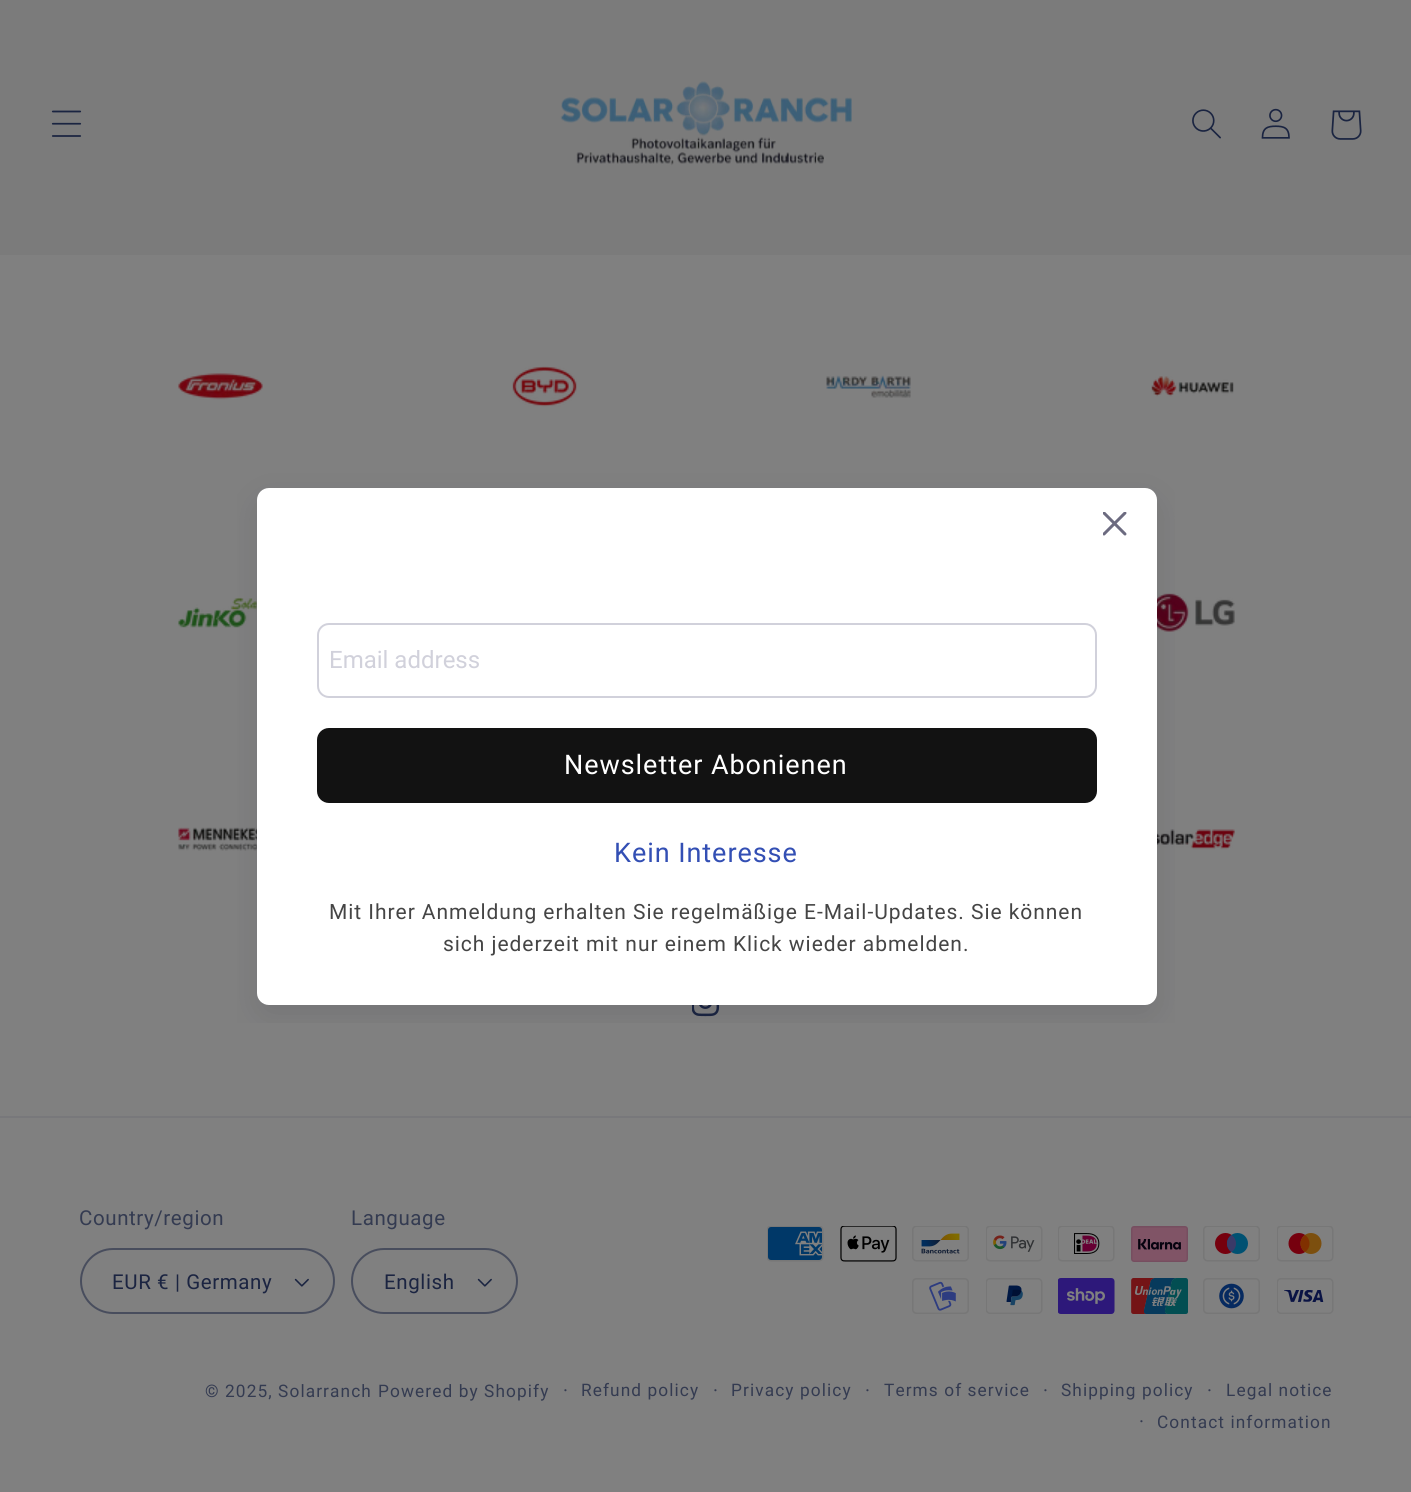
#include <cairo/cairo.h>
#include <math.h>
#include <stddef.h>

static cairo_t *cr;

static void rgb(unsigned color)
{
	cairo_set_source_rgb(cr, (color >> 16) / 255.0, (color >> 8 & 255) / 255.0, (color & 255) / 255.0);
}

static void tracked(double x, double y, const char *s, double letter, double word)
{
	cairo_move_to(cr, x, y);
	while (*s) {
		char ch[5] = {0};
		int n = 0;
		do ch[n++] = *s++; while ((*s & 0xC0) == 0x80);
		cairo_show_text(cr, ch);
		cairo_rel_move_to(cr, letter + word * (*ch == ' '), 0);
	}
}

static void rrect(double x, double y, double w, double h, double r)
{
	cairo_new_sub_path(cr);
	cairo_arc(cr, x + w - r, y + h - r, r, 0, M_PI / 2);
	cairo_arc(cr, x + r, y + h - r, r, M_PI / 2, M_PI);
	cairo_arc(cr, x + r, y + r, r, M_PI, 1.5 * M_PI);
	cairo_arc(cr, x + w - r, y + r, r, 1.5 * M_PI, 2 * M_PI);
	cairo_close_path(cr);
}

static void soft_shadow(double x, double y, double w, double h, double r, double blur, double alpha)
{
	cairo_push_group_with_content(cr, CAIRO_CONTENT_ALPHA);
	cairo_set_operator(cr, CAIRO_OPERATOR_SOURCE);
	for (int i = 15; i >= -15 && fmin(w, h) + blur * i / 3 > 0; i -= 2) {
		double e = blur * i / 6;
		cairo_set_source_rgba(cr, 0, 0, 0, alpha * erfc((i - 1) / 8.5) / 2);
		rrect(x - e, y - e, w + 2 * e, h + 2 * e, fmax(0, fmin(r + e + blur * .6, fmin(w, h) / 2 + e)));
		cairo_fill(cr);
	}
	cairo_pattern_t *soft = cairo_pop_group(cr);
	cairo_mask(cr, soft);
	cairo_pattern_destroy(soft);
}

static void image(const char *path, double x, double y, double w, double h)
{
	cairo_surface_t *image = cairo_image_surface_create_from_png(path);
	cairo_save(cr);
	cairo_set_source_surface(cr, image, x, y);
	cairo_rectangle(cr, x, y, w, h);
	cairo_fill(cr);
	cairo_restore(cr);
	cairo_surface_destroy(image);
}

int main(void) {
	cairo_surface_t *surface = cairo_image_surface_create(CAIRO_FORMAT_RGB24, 1411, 1492);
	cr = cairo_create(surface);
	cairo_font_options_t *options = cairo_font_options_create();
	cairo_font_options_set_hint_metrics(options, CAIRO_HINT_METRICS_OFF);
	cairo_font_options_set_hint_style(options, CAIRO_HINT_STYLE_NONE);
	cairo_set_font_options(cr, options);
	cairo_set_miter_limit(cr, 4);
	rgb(0x808080);
	cairo_paint(cr);
	rgb(0x7b7b7b);
	cairo_rectangle(cr, 0, 0, 1411, 255);
	cairo_fill(cr);
	image("img/1.png", 51, 110, 31, 27);
	image("img/2.png", 560, 81, 292, 85);
	image("img/3.png", 1192, 109, 29, 30);
	image("img/4.png", 1261, 108, 29, 31);
	image("img/5.png", 1331, 110, 31, 30);
	image("img/11.png", 178, 597, 79, 31);
	image("img/12.png", 1157, 593, 78, 39);
	image("img/13.png", 178, 827, 79, 24);
	image("img/14.png", 1157, 829, 78, 21);
	image("img/15.png", 692, 1005, 28, 12);
	cairo_save(cr);
	cairo_rectangle(cr, 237, 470, 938, 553);
	cairo_clip(cr);
	rgb(0x121127);
	soft_shadow(257, 500, 900, 517, 12, 15, 0.1);
	cairo_restore(cr);
	rgb(0xffffff);
	rrect(257, 488, 900, 517, 12);
	cairo_fill(cr);
	image("img/6.png", 1103, 512, 24, 24);
	rrect(318, 624, 778, 73, 11);
	rgb(0xd1d1db);
	cairo_stroke(cr);
	rgb(0x121212);
	rrect(317, 728, 780, 75, 12);
	cairo_fill(cr);
	image("img/7.png", 178, 373, 85, 27);
	image("img/8.png", 512, 366, 65, 41);
	image("img/9.png", 826, 375, 85, 23);
	image("img/10.png", 1151, 376, 83, 21);
	rgb(0x78787b);
	cairo_rectangle(cr, 0, 1116, 1411, 2);
	cairo_fill(cr);
	image("img/16.png", 294, 1278, 15, 9);
	rrect(81, 1249, 253, 64, 32);
	rgb(0x484d5d);
	cairo_stroke(cr);
	image("img/16.png", 477, 1278, 15, 9);
	rrect(352, 1249, 165, 64, 32);
	cairo_stroke(cr);
	image("img/17.png", 767, 1226, 57, 36);
	image("img/18.png", 840, 1226, 57, 36);
	image("img/19.png", 912, 1226, 57, 36);
	image("img/20.png", 986, 1226, 57, 36);
	image("img/21.png", 1058, 1226, 57, 36);
	image("img/22.png", 1131, 1226, 57, 36);
	image("img/23.png", 1203, 1226, 57, 36);
	image("img/24.png", 1277, 1226, 57, 36);
	image("img/25.png", 912, 1278, 57, 36);
	image("img/26.png", 986, 1278, 57, 36);
	image("img/27.png", 1058, 1278, 57, 36);
	image("img/28.png", 1131, 1278, 57, 36);
	image("img/29.png", 1203, 1278, 57, 36);
	image("img/30.png", 1277, 1278, 57, 36);
	cairo_select_font_face(cr, "Roboto", CAIRO_FONT_SLANT_NORMAL, CAIRO_FONT_WEIGHT_NORMAL);
	cairo_set_font_size(cr, 24);
	rgb(0xd1d1db);
	cairo_move_to(cr, 329, 668);
	cairo_show_text(cr, "Email address");
	cairo_set_font_size(cr, 27);
	rgb(0xffffff);
	tracked(564, 774, "Newsletter Abonienen", 0.95, 0);
	rgb(0x334fb4);
	tracked(614, 862, "Kein Interesse", 0.95, 0);
	cairo_set_font_size(cr, 21);
	rgb(0x454545);
	tracked(329, 919, "Mit Ihrer Anmeldung erhalten Sie regelmäßige E-Mail-Updates. Sie können", 0.95, 0);
	tracked(443, 951, "sich jederzeit mit nur einem Klick wieder abmelden.", 0.95, 0);
	cairo_set_font_size(cr, 20.5);
	rgb(0x343b51);
	tracked(79, 1225, "Country/region", 0.6, 0);
	rgb(0x1b2441);
	tracked(112, 1289, "EUR € | Germany", 0.6, 0);
	rgb(0x343b51);
	tracked(351, 1225, "Language", 0.6, 0);
	rgb(0x1b2441);
	tracked(384, 1289, "English", 0.6, 0);
	cairo_set_font_size(cr, 17.25);
	rgb(0x343b51);
	tracked(205, 1397, "© 2025, Solarranch", 1.1, 0);
	tracked(378, 1397, "Powered by Shopify", 1.1, 0);
	cairo_set_font_size(cr, 19);
	tracked(563, 1397, "·", 1.1, 0);
	cairo_set_font_size(cr, 17.25);
	tracked(581, 1396, "Refund policy", 1.1, 0);
	cairo_set_font_size(cr, 19);
	tracked(713, 1397, "·", 1.1, 0);
	cairo_set_font_size(cr, 17.25);
	tracked(731, 1396, "Privacy policy", 1.1, 0);
	cairo_set_font_size(cr, 19);
	tracked(865, 1397, "·", 1.1, 0);
	cairo_set_font_size(cr, 17.25);
	tracked(884, 1396, "Terms of service", 1.1, 0);
	cairo_set_font_size(cr, 19);
	tracked(1043, 1397, "·", 1.1, 0);
	cairo_set_font_size(cr, 17.25);
	tracked(1061, 1396, "Shipping policy", 1.1, 0);
	cairo_set_font_size(cr, 19);
	tracked(1207, 1397, "·", 1.1, 0);
	cairo_set_font_size(cr, 17.25);
	tracked(1226, 1396, "Legal notice", 1.1, 0);
	cairo_set_font_size(cr, 19);
	tracked(1139, 1428, "·", 1.1, 0);
	cairo_set_font_size(cr, 17.25);
	tracked(1157, 1428, "Contact information", 1.1, 0);
	cairo_surface_write_to_png(surface, "page.png");
	cairo_font_options_destroy(options);
	cairo_destroy(cr);
	cairo_surface_destroy(surface);
	return 0;
}
